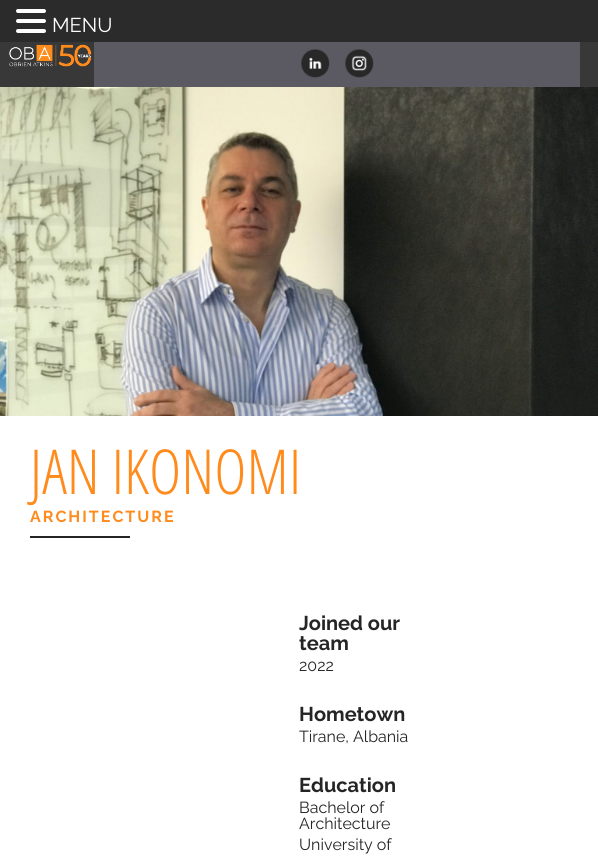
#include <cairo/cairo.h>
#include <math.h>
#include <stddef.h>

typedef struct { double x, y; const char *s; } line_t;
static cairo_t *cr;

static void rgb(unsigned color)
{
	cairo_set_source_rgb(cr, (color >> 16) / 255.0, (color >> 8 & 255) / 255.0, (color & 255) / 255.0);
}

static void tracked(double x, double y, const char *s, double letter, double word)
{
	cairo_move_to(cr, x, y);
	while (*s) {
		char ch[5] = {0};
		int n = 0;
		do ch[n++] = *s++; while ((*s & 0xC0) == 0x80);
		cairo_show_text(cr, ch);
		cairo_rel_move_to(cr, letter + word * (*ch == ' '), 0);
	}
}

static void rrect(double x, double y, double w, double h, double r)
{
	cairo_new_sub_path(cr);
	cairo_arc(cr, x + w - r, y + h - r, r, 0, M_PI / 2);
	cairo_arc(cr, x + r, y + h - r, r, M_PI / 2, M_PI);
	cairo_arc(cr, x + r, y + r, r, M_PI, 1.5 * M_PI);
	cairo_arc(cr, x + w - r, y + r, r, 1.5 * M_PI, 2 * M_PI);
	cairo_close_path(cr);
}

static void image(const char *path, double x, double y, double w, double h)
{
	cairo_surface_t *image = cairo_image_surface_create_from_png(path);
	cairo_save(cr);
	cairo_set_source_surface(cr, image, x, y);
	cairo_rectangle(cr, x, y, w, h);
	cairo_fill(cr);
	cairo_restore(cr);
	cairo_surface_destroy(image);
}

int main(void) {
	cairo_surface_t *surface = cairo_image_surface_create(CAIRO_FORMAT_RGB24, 598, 859);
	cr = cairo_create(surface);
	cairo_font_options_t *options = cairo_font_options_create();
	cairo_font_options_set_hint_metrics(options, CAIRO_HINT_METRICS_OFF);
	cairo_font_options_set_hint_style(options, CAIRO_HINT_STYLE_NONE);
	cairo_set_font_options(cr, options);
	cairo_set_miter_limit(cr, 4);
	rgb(0xffffff);
	cairo_paint(cr);
	rgb(0x2b2b2b);
	cairo_rectangle(cr, 0, 0, 598, 42);
	cairo_fill(cr);
	rgb(0xffffff);
	rrect(16, 9, 30, 4, 2);
	cairo_fill(cr);
	rrect(16, 19, 30, 4, 2);
	cairo_fill(cr);
	rrect(16, 29, 30, 4, 2);
	cairo_fill(cr);
	rgb(0x383838);
	cairo_rectangle(cr, 0, 42, 598, 45);
	cairo_fill(cr);
	image("img/1.png", 9, 44, 83, 23);
	rgb(0x5b5a62);
	cairo_rectangle(cr, 94, 42, 486, 45);
	cairo_fill(cr);
	image("img/2.png", 301, 49, 29, 29);
	image("img/3.png", 345, 49, 29, 29);
	image("img/4.png", 0, 87, 598, 329);
	rgb(0x252525);
	cairo_rectangle(cr, 30, 536, 100, 2);
	cairo_fill(cr);
	cairo_select_font_face(cr, "Raleway", CAIRO_FONT_SLANT_NORMAL, CAIRO_FONT_WEIGHT_NORMAL);
	cairo_set_font_size(cr, 20);
	rgb(0xffffff);
	cairo_move_to(cr, 52, 32);
	cairo_show_text(cr, "MENU");
	cairo_select_font_face(cr, "Open Sans Condensed Light", CAIRO_FONT_SLANT_NORMAL, CAIRO_FONT_WEIGHT_NORMAL);
	cairo_set_font_size(cr, 62);
	rgb(0xff8b1d);
	cairo_move_to(cr, 30, 494);
	cairo_show_text(cr, "JAN IKONOMI");
	cairo_select_font_face(cr, "Raleway", CAIRO_FONT_SLANT_NORMAL, CAIRO_FONT_WEIGHT_BOLD);
	cairo_set_font_size(cr, 16);
	tracked(30, 522, "ARCHITECTURE", 2, 0);
	cairo_set_font_size(cr, 20);
	rgb(0x252525);
	cairo_move_to(cr, 299, 630);
	cairo_show_text(cr, "Joined our");
	cairo_move_to(cr, 299, 650);
	cairo_show_text(cr, "team");
	cairo_select_font_face(cr, "Raleway", CAIRO_FONT_SLANT_NORMAL, CAIRO_FONT_WEIGHT_NORMAL);
	cairo_set_font_size(cr, 16);
	cairo_move_to(cr, 299, 671);
	cairo_show_text(cr, "2022");
	cairo_select_font_face(cr, "Raleway", CAIRO_FONT_SLANT_NORMAL, CAIRO_FONT_WEIGHT_BOLD);
	cairo_set_font_size(cr, 20);
	cairo_move_to(cr, 299, 721);
	cairo_show_text(cr, "Hometown");
	cairo_select_font_face(cr, "Raleway", CAIRO_FONT_SLANT_NORMAL, CAIRO_FONT_WEIGHT_NORMAL);
	cairo_set_font_size(cr, 16);
	cairo_move_to(cr, 299, 742);
	cairo_show_text(cr, "Tirane, Albania");
	cairo_select_font_face(cr, "Raleway", CAIRO_FONT_SLANT_NORMAL, CAIRO_FONT_WEIGHT_BOLD);
	cairo_set_font_size(cr, 20);
	cairo_move_to(cr, 299, 792);
	cairo_show_text(cr, "Education");
	cairo_select_font_face(cr, "Raleway", CAIRO_FONT_SLANT_NORMAL, CAIRO_FONT_WEIGHT_NORMAL);
	cairo_set_font_size(cr, 16);
	{
		static const line_t items[] = {
			{299, 813, "Bachelor of"},
			{299, 829, "Architecture"},
			{299, 850, "University of"},
		};
		for (size_t i = 0; i < sizeof items / sizeof *items; i++) {
			cairo_move_to(cr, items[i].x, items[i].y);
			cairo_show_text(cr, items[i].s);
		}
	}
	cairo_surface_write_to_png(surface, "page.png");
	cairo_font_options_destroy(options);
	cairo_destroy(cr);
	cairo_surface_destroy(surface);
	return 0;
}
